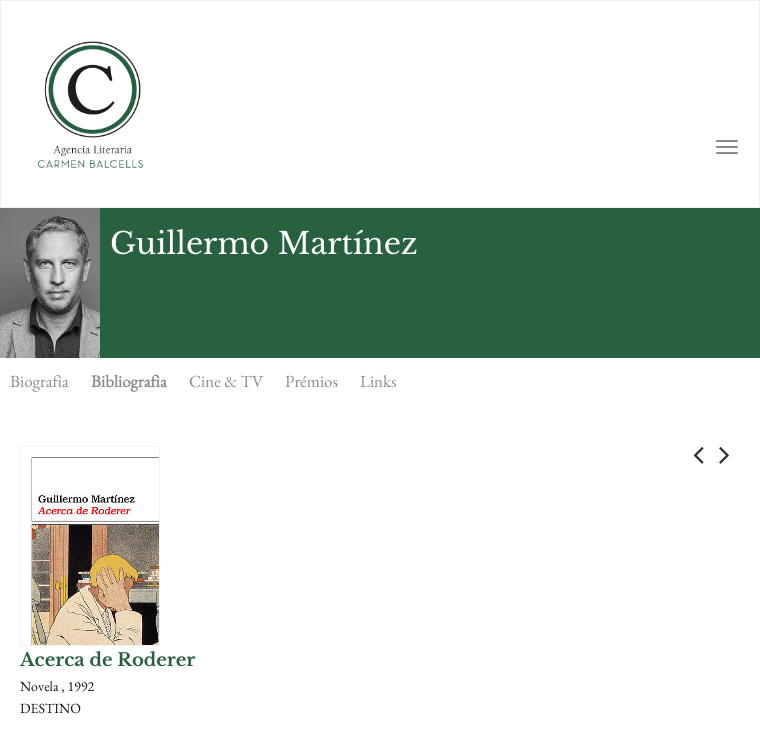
#include <cairo/cairo.h>
#include <math.h>
#include <stddef.h>

typedef struct { double x, y; const char *s; } line_t;
typedef struct { double x, y, w, h; unsigned color; } box_t;
static cairo_t *cr;

static void rgb(unsigned color)
{
	cairo_set_source_rgb(cr, (color >> 16) / 255.0, (color >> 8 & 255) / 255.0, (color & 255) / 255.0);
}

static void rrect(double x, double y, double w, double h, double r)
{
	cairo_new_sub_path(cr);
	cairo_arc(cr, x + w - r, y + h - r, r, 0, M_PI / 2);
	cairo_arc(cr, x + r, y + h - r, r, M_PI / 2, M_PI);
	cairo_arc(cr, x + r, y + r, r, M_PI, 1.5 * M_PI);
	cairo_arc(cr, x + w - r, y + r, r, 1.5 * M_PI, 2 * M_PI);
	cairo_close_path(cr);
}

static void image(const char *path, double x, double y, double w, double h)
{
	cairo_surface_t *image = cairo_image_surface_create_from_png(path);
	cairo_save(cr);
	cairo_set_source_surface(cr, image, x, y);
	cairo_rectangle(cr, x, y, w, h);
	cairo_fill(cr);
	cairo_restore(cr);
	cairo_surface_destroy(image);
}

int main(void) {
	cairo_surface_t *surface = cairo_image_surface_create(CAIRO_FORMAT_RGB24, 760, 739);
	cr = cairo_create(surface);
	cairo_font_options_t *options = cairo_font_options_create();
	cairo_font_options_set_hint_metrics(options, CAIRO_HINT_METRICS_OFF);
	cairo_font_options_set_hint_style(options, CAIRO_HINT_STYLE_NONE);
	cairo_set_font_options(cr, options);
	cairo_set_miter_limit(cr, 4);
	rgb(0xffffff);
	cairo_paint(cr);
	{
		static const box_t items[] = {
			{0, 0, 760, 1, 0xeeeeee},
			{759, 0, 1, 208, 0xefefef},
			{0, 207, 760, 1, 0xeeeeee},
			{0, 0, 1, 208, 0xeeeeee},
		};
		for (size_t i = 0; i < sizeof items / sizeof *items; i++) {
			rgb(items[i].color);
			cairo_rectangle(cr, items[i].x, items[i].y, items[i].w, items[i].h);
			cairo_fill(cr);
		}
	}
	image("img/1.png", 37, 41, 106, 127);
	rgb(0x8c8c8c);
	rrect(716, 140, 22, 2, 1);
	cairo_fill(cr);
	rrect(716, 146, 22, 2, 1);
	cairo_fill(cr);
	rrect(716, 152, 22, 2, 1);
	cairo_fill(cr);
	rgb(0x286140);
	cairo_rectangle(cr, 100, 208, 660, 150);
	cairo_fill(cr);
	image("img/2.png", 0, 208, 100, 150);
	image("img/3.png", 693, 447, 11, 17);
	image("img/4.png", 719, 447, 10, 17);
	cairo_rectangle(cr, 20.5, 446.5, 139, 199);
	rgb(0xf3f3f3);
	cairo_set_line_width(cr, 1);
	cairo_stroke(cr);
	image("img/5.png", 29, 457, 130, 188);
	cairo_select_font_face(cr, "Libre Baskerville", CAIRO_FONT_SLANT_NORMAL, CAIRO_FONT_WEIGHT_NORMAL);
	cairo_set_font_size(cr, 30);
	rgb(0xffffff);
	cairo_move_to(cr, 110, 254);
	cairo_show_text(cr, "Guillermo Martínez");
	cairo_select_font_face(cr, "EB Garamond", CAIRO_FONT_SLANT_NORMAL, CAIRO_FONT_WEIGHT_NORMAL);
	cairo_set_font_size(cr, 17);
	rgb(0x8c8c8c);
	cairo_move_to(cr, 10, 387);
	cairo_show_text(cr, "Biografia");
	cairo_select_font_face(cr, "EB Garamond", CAIRO_FONT_SLANT_NORMAL, CAIRO_FONT_WEIGHT_BOLD);
	cairo_move_to(cr, 91, 387);
	cairo_show_text(cr, "Bibliografia");
	cairo_select_font_face(cr, "EB Garamond", CAIRO_FONT_SLANT_NORMAL, CAIRO_FONT_WEIGHT_NORMAL);
	{
		static const line_t items[] = {
			{189, 387, "Cine & TV"},
			{285, 387, "Prémios"},
			{360, 387, "Links"},
		};
		for (size_t i = 0; i < sizeof items / sizeof *items; i++) {
			cairo_move_to(cr, items[i].x, items[i].y);
			cairo_show_text(cr, items[i].s);
		}
	}
	cairo_select_font_face(cr, "Libre Baskerville", CAIRO_FONT_SLANT_NORMAL, CAIRO_FONT_WEIGHT_BOLD);
	cairo_set_font_size(cr, 18);
	rgb(0x286140);
	cairo_move_to(cr, 20, 666);
	cairo_show_text(cr, "Acerca de Roderer");
	cairo_select_font_face(cr, "EB Garamond", CAIRO_FONT_SLANT_NORMAL, CAIRO_FONT_WEIGHT_NORMAL);
	cairo_set_font_size(cr, 14);
	rgb(0x161616);
	cairo_move_to(cr, 20, 691);
	cairo_show_text(cr, "Novela , 1992");
	cairo_move_to(cr, 20, 713);
	cairo_show_text(cr, "DESTINO");
	cairo_surface_write_to_png(surface, "page.png");
	cairo_font_options_destroy(options);
	cairo_destroy(cr);
	cairo_surface_destroy(surface);
	return 0;
}
